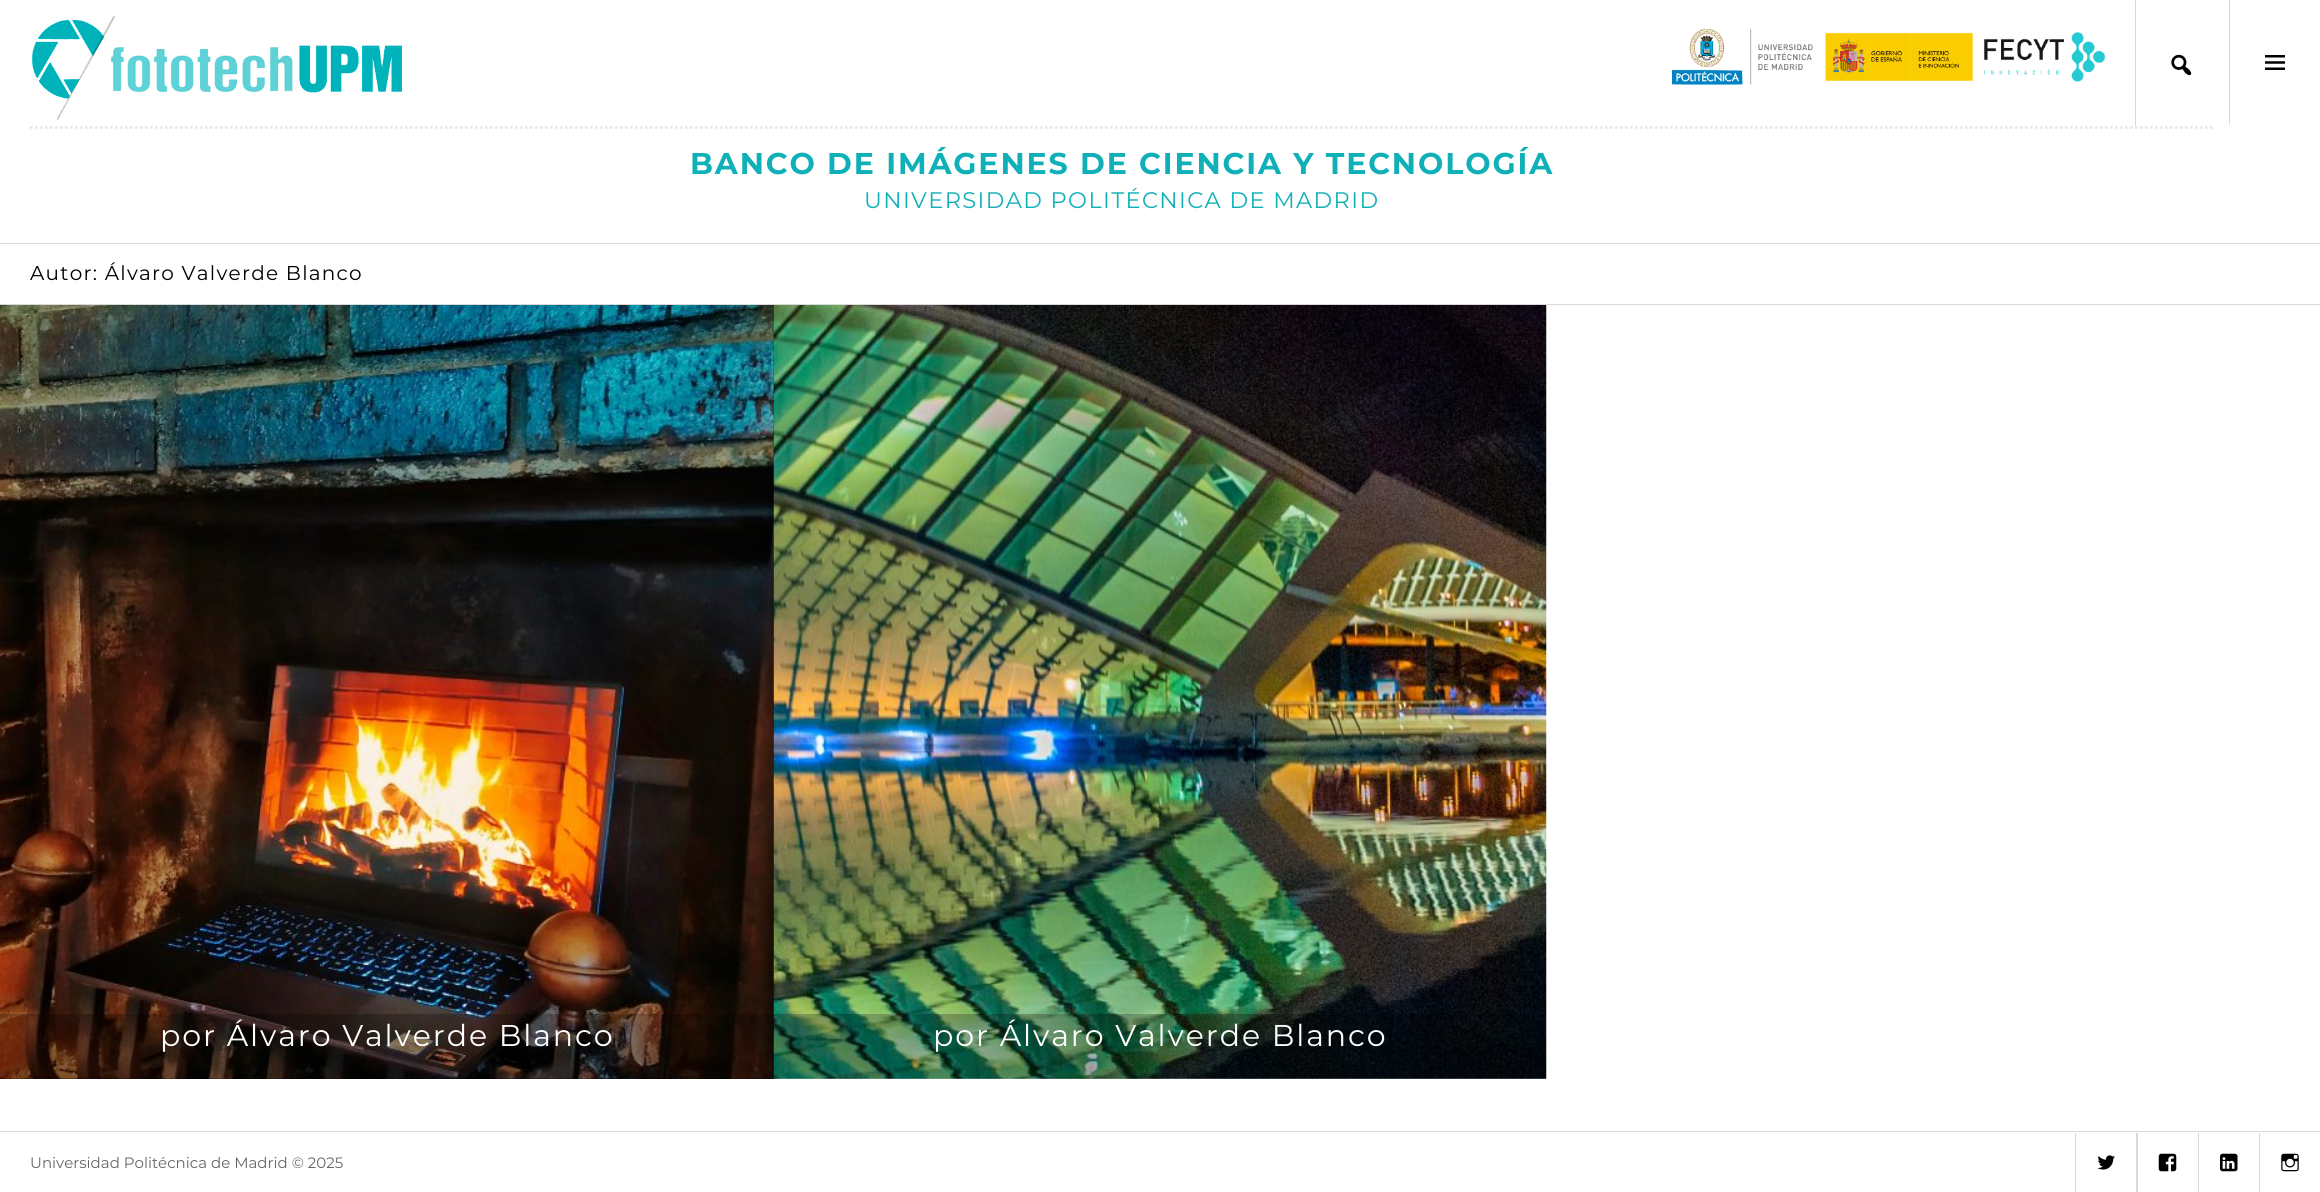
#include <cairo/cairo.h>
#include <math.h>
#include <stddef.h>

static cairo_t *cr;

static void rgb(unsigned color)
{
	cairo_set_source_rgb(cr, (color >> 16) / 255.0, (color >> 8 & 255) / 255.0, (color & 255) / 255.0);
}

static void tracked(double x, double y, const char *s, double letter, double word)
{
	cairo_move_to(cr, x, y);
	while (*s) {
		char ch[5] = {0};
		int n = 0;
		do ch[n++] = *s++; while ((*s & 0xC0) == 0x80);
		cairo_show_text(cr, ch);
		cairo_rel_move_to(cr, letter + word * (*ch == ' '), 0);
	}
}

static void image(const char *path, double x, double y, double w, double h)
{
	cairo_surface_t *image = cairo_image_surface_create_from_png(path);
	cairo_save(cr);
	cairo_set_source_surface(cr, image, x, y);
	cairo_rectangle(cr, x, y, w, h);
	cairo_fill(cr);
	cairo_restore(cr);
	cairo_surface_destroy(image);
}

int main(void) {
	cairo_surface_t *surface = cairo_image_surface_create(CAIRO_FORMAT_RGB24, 2320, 1192);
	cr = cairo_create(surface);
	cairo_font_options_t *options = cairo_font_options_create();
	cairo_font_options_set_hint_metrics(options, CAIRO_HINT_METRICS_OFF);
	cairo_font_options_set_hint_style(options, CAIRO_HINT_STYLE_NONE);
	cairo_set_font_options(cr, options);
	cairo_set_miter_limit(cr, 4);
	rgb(0xffffff);
	cairo_paint(cr);
	rgb(0xd9d9d9);
	cairo_rectangle(cr, 0, 243, 2320, 1);
	cairo_fill(cr);
	image("img/1.png", 32, 15, 370, 105);
	image("img/2.png", 1672, 28, 434, 57);
	cairo_rectangle(cr, 2135, 0, 1, 126);
	cairo_fill(cr);
	image("img/3.png", 2171, 54, 21, 22);
	cairo_rectangle(cr, 2229, 0, 1, 125);
	cairo_fill(cr);
	image("img/4.png", 2265, 55, 20, 15);
	cairo_new_path(cr);
	cairo_move_to(cr, 30, 127.5);
	cairo_line_to(cr, 2214, 127.5);
	rgb(0xe4e4e4);
	cairo_set_line_width(cr, 2.5);
	cairo_set_dash(cr, (double[]){2.5, 2.5}, 2, 0);
	cairo_stroke(cr);
	rgb(0xd9d9d9);
	cairo_rectangle(cr, 0, 304, 2320, 1);
	cairo_fill(cr);
	rgb(0x000000);
	cairo_rectangle(cr, 0, 305, 774, 774);
	cairo_fill(cr);
	image("img/5.png", 0, 305, 774, 774);
	image("img/6.png", 773, 305, 774, 774);
	cairo_set_source_rgba(cr, 0, 0, 0, 0.25);
	cairo_rectangle(cr, 0, 1014, 774, 65);
	cairo_fill(cr);
	cairo_rectangle(cr, 774, 1014, 772, 65);
	cairo_fill(cr);
	rgb(0xd9d9d9);
	cairo_rectangle(cr, 0, 1131, 2320, 1);
	cairo_fill(cr);
	cairo_save(cr);
	cairo_rectangle(cr, 0, 1133, 2320, 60);
	cairo_clip(cr);
	cairo_rectangle(cr, 2075.5, 1131.5, 62, 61);
	cairo_set_line_width(cr, 1);
	cairo_set_dash(cr, NULL, 0, 0);
	cairo_stroke(cr);
	cairo_restore(cr);
	image("img/7.png", 2097, 1155, 18, 15);
	cairo_save(cr);
	cairo_rectangle(cr, 0, 1133, 2320, 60);
	cairo_clip(cr);
	cairo_rectangle(cr, 2136.5, 1131.5, 62, 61);
	cairo_set_line_width(cr, 1);
	cairo_set_dash(cr, NULL, 0, 0);
	cairo_stroke(cr);
	cairo_restore(cr);
	image("img/8.png", 2158, 1153, 19, 19);
	cairo_save(cr);
	cairo_rectangle(cr, 0, 1133, 2320, 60);
	cairo_clip(cr);
	cairo_rectangle(cr, 2198.5, 1131.5, 61, 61);
	cairo_set_line_width(cr, 1);
	cairo_set_dash(cr, NULL, 0, 0);
	cairo_stroke(cr);
	cairo_restore(cr);
	image("img/9.png", 2220, 1153, 18, 19);
	image("img/10.png", 2281, 1153, 18, 19);
	cairo_select_font_face(cr, "Montserrat", CAIRO_FONT_SLANT_NORMAL, CAIRO_FONT_WEIGHT_BOLD);
	cairo_set_font_size(cr, 30);
	rgb(0x10b0b8);
	tracked(690, 174, "BANCO DE IMÁGENES DE CIENCIA Y TECNOLOGÍA", 1.9, 0);
	cairo_select_font_face(cr, "Montserrat", CAIRO_FONT_SLANT_NORMAL, CAIRO_FONT_WEIGHT_NORMAL);
	cairo_set_font_size(cr, 22.5);
	tracked(864, 208, "UNIVERSIDAD POLITÉCNICA DE MADRID", 1.4, 0);
	cairo_set_font_size(cr, 20);
	rgb(0x000000);
	tracked(30, 280, "Autor: Álvaro Valverde Blanco", 1.25, 0);
	cairo_set_font_size(cr, 30);
	rgb(0xffffff);
	tracked(160, 1046, "por Álvaro Valverde Blanco", 1.9, 0);
	tracked(933, 1046, "por Álvaro Valverde Blanco", 1.9, 0);
	cairo_set_font_size(cr, 15);
	rgb(0x666666);
	cairo_move_to(cr, 30, 1168);
	cairo_show_text(cr, "Universidad Politécnica de Madrid © 2025");
	cairo_surface_write_to_png(surface, "page.png");
	cairo_font_options_destroy(options);
	cairo_destroy(cr);
	cairo_surface_destroy(surface);
	return 0;
}
